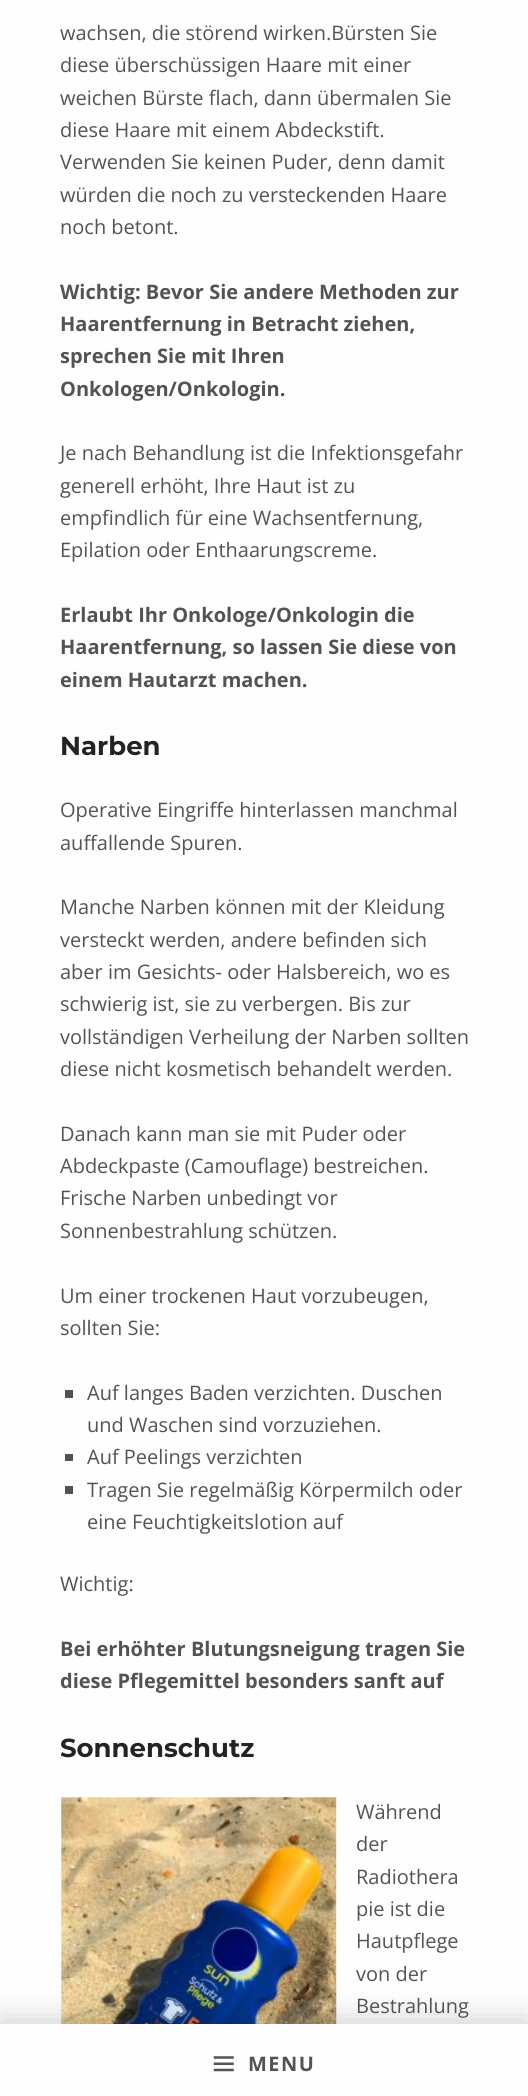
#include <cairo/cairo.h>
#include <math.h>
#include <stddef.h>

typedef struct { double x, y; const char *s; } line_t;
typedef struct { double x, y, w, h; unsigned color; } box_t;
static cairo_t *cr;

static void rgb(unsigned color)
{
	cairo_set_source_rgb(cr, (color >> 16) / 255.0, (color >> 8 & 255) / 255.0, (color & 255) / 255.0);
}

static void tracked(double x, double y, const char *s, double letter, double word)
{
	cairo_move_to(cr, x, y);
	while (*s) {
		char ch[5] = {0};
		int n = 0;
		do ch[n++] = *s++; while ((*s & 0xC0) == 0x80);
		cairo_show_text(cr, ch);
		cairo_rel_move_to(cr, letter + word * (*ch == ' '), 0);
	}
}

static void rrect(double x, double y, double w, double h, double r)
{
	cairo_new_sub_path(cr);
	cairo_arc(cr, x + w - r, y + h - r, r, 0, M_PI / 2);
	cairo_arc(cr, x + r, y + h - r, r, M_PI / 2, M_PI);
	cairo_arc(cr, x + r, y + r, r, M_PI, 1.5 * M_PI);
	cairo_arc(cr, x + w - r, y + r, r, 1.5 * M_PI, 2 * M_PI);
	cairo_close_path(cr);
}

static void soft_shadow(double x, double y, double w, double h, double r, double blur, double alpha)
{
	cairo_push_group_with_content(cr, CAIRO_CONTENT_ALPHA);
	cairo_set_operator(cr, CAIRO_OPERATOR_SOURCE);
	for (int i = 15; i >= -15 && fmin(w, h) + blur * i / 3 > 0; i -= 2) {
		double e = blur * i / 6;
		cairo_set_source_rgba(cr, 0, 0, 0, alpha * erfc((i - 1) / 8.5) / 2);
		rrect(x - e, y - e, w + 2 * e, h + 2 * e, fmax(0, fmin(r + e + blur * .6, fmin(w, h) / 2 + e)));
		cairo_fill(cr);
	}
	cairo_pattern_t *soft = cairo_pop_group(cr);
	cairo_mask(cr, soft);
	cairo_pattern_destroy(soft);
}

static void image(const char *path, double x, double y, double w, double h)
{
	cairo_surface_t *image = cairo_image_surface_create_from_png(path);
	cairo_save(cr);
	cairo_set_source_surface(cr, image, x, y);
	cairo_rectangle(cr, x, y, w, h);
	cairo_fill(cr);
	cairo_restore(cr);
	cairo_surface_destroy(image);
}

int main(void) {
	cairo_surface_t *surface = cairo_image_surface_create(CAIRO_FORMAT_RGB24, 528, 2096);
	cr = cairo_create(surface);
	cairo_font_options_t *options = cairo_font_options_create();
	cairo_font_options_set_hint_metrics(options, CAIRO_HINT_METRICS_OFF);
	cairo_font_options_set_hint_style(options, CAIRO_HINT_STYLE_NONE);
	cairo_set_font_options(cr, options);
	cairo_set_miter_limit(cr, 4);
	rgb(0xfefeff);
	cairo_paint(cr);
	{
		static const box_t items[] = {
			{65, 1390, 8, 8, 0x535354},
			{65, 1454, 8, 7, 0x535354},
			{65, 1486, 8, 8, 0x535354},
		};
		for (size_t i = 0; i < sizeof items / sizeof *items; i++) {
			rgb(items[i].color);
			cairo_rectangle(cr, items[i].x, items[i].y, items[i].w, items[i].h);
			cairo_fill(cr);
		}
	}
	image("img/1.png", 61, 1797, 276, 227);
	rgb(0x000000);
	soft_shadow(0, 2021, 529, 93, 0, 16, 0.2);
	rgb(0xfefeff);
	cairo_rectangle(cr, 0, 2024, 528, 72);
	cairo_fill(cr);
	image("img/2.png", 213, 2056, 21, 16);
	cairo_select_font_face(cr, "Open Sans", CAIRO_FONT_SLANT_NORMAL, CAIRO_FONT_WEIGHT_NORMAL);
	cairo_set_font_size(cr, 20);
	rgb(0x535354);
	{
		static const line_t items[] = {
			{60, 40, "wachsen, die störend wirken.Bürsten Sie"},
			{60, 72, "diese überschüssigen Haare mit einer"},
			{60, 105, "weichen Bürste flach, dann übermalen Sie"},
			{60, 137, "diese Haare mit einem Abdeckstift."},
			{60, 169, "Verwenden Sie keinen Puder, denn damit"},
			{60, 202, "würden die noch zu versteckenden Haare"},
			{60, 234, "noch betont."},
		};
		for (size_t i = 0; i < sizeof items / sizeof *items; i++) {
			cairo_move_to(cr, items[i].x, items[i].y);
			cairo_show_text(cr, items[i].s);
		}
	}
	cairo_select_font_face(cr, "Open Sans", CAIRO_FONT_SLANT_NORMAL, CAIRO_FONT_WEIGHT_BOLD);
	{
		static const line_t items[] = {
			{60, 299, "Wichtig: Bevor Sie andere Methoden zur"},
			{60, 331, "Haarentfernung in Betracht ziehen,"},
			{60, 363, "sprechen Sie mit Ihren"},
			{60, 396, "Onkologen/Onkologin."},
		};
		for (size_t i = 0; i < sizeof items / sizeof *items; i++) {
			cairo_move_to(cr, items[i].x, items[i].y);
			cairo_show_text(cr, items[i].s);
		}
	}
	cairo_select_font_face(cr, "Open Sans", CAIRO_FONT_SLANT_NORMAL, CAIRO_FONT_WEIGHT_NORMAL);
	{
		static const line_t items[] = {
			{60, 460, "Je nach Behandlung ist die Infektionsgefahr"},
			{60, 493, "generell erhöht, Ihre Haut ist zu"},
			{60, 525, "empfindlich für eine Wachsentfernung,"},
			{60, 557, "Epilation oder Enthaarungscreme."},
		};
		for (size_t i = 0; i < sizeof items / sizeof *items; i++) {
			cairo_move_to(cr, items[i].x, items[i].y);
			cairo_show_text(cr, items[i].s);
		}
	}
	cairo_select_font_face(cr, "Open Sans", CAIRO_FONT_SLANT_NORMAL, CAIRO_FONT_WEIGHT_BOLD);
	{
		static const line_t items[] = {
			{60, 622, "Erlaubt Ihr Onkologe/Onkologin die"},
			{60, 654, "Haarentfernung, so lassen Sie diese von"},
			{60, 687, "einem Hautarzt machen."},
		};
		for (size_t i = 0; i < sizeof items / sizeof *items; i++) {
			cairo_move_to(cr, items[i].x, items[i].y);
			cairo_show_text(cr, items[i].s);
		}
	}
	cairo_select_font_face(cr, "Montserrat", CAIRO_FONT_SLANT_NORMAL, CAIRO_FONT_WEIGHT_BOLD);
	cairo_set_font_size(cr, 26);
	rgb(0x232324);
	cairo_move_to(cr, 60, 755);
	cairo_show_text(cr, "Narben");
	cairo_select_font_face(cr, "Open Sans", CAIRO_FONT_SLANT_NORMAL, CAIRO_FONT_WEIGHT_NORMAL);
	cairo_set_font_size(cr, 20);
	rgb(0x535354);
	{
		static const line_t items[] = {
			{60, 817, "Operative Eingriffe hinterlassen manchmal"},
			{60, 850, "auffallende Spuren."},
			{60, 914, "Manche Narben können mit der Kleidung"},
			{60, 947, "versteckt werden, andere befinden sich"},
			{60, 979, "aber im Gesichts- oder Halsbereich, wo es"},
			{60, 1011, "schwierig ist, sie zu verbergen. Bis zur"},
			{60, 1044, "vollständigen Verheilung der Narben sollten"},
			{60, 1076, "diese nicht kosmetisch behandelt werden."},
			{60, 1141, "Danach kann man sie mit Puder oder"},
			{60, 1173, "Abdeckpaste (Camouflage) bestreichen."},
			{60, 1205, "Frische Narben unbedingt vor"},
			{60, 1238, "Sonnenbestrahlung schützen."},
			{60, 1303, "Um einer trockenen Haut vorzubeugen,"},
			{60, 1335, "sollten Sie:"},
			{87, 1400, "Auf langes Baden verzichten. Duschen"},
			{87, 1432, "und Waschen sind vorzuziehen."},
			{87, 1464, "Auf Peelings verzichten"},
			{87, 1497, "Tragen Sie regelmäßig Körpermilch oder"},
			{87, 1529, "eine Feuchtigkeitslotion auf"},
			{60, 1591, "Wichtig:"},
		};
		for (size_t i = 0; i < sizeof items / sizeof *items; i++) {
			cairo_move_to(cr, items[i].x, items[i].y);
			cairo_show_text(cr, items[i].s);
		}
	}
	cairo_select_font_face(cr, "Open Sans", CAIRO_FONT_SLANT_NORMAL, CAIRO_FONT_WEIGHT_BOLD);
	cairo_move_to(cr, 60, 1656);
	cairo_show_text(cr, "Bei erhöhter Blutungsneigung tragen Sie");
	cairo_move_to(cr, 60, 1688);
	cairo_show_text(cr, "diese Pflegemittel besonders sanft auf");
	cairo_select_font_face(cr, "Montserrat", CAIRO_FONT_SLANT_NORMAL, CAIRO_FONT_WEIGHT_BOLD);
	cairo_set_font_size(cr, 26);
	rgb(0x232324);
	cairo_move_to(cr, 60, 1757);
	cairo_show_text(cr, "Sonnenschutz");
	cairo_select_font_face(cr, "Open Sans", CAIRO_FONT_SLANT_NORMAL, CAIRO_FONT_WEIGHT_NORMAL);
	cairo_set_font_size(cr, 20);
	rgb(0x535354);
	{
		static const line_t items[] = {
			{356, 1819, "Während"},
			{356, 1851, "der"},
			{356, 1884, "Radiothera"},
			{356, 1916, "pie ist die"},
			{356, 1948, "Hautpflege"},
			{356, 1981, "von der"},
			{356, 2013, "Bestrahlung"},
		};
		for (size_t i = 0; i < sizeof items / sizeof *items; i++) {
			cairo_move_to(cr, items[i].x, items[i].y);
			cairo_show_text(cr, items[i].s);
		}
	}
	cairo_select_font_face(cr, "Open Sans", CAIRO_FONT_SLANT_NORMAL, CAIRO_FONT_WEIGHT_BOLD);
	tracked(248, 2071, "MENU", 1.5, 0);
	cairo_surface_write_to_png(surface, "page.png");
	cairo_font_options_destroy(options);
	cairo_destroy(cr);
	cairo_surface_destroy(surface);
	return 0;
}
